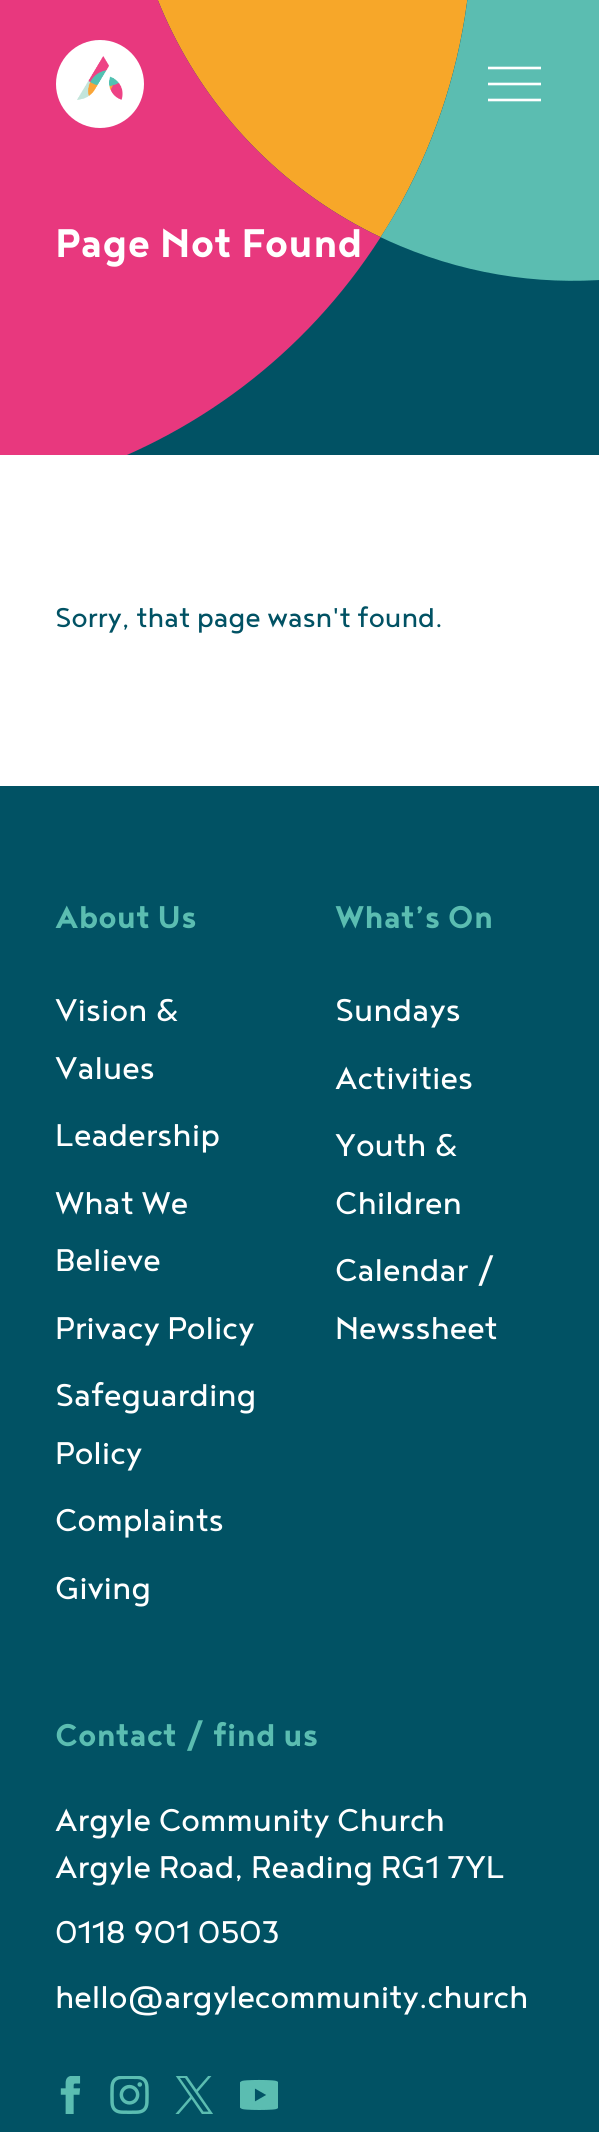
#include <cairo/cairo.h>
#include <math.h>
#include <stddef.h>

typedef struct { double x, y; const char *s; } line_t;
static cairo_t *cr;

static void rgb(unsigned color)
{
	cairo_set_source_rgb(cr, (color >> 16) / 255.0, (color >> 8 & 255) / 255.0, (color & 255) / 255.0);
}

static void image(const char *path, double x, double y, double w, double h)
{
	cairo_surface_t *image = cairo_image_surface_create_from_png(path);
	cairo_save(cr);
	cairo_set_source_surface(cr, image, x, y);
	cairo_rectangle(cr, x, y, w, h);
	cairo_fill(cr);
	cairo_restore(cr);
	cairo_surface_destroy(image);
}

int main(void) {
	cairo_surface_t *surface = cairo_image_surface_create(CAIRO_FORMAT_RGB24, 599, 2132);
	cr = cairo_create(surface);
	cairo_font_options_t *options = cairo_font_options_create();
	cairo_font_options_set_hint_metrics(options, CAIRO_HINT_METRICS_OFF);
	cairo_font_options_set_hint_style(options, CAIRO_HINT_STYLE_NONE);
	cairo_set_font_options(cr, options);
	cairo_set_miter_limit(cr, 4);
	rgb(0xffffff);
	cairo_paint(cr);
	rgb(0x015264);
	cairo_rectangle(cr, 126, 0, 473, 455);
	cairo_fill(cr);
	image("img/2.png", 0, 0, 599, 455);
	rgb(0xffffff);
	cairo_arc(cr, 100, 84, 44, 0, 2 * M_PI);
	cairo_fill(cr);
	image("img/1.png", 77, 56, 46, 44);
	cairo_new_path(cr);
	cairo_move_to(cr, 488, 68);
	cairo_line_to(cr, 541, 68);
	cairo_move_to(cr, 488, 84);
	cairo_line_to(cr, 541, 84);
	cairo_move_to(cr, 488, 100);
	cairo_line_to(cr, 541, 100);
	cairo_set_line_width(cr, 2.6);
	cairo_stroke(cr);
	rgb(0x015264);
	cairo_rectangle(cr, 0, 786, 599, 1346);
	cairo_fill(cr);
	image("img/3.png", 60, 2076, 21, 38);
	image("img/4.png", 110, 2076, 39, 38);
	image("img/5.png", 175, 2076, 38, 38);
	image("img/6.png", 240, 2079, 38, 31);
	cairo_select_font_face(cr, "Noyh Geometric", CAIRO_FONT_SLANT_NORMAL, CAIRO_FONT_WEIGHT_BOLD);
	cairo_set_font_size(cr, 49);
	rgb(0xffffff);
	cairo_move_to(cr, 55, 257);
	cairo_show_text(cr, "Page Not Found");
	cairo_select_font_face(cr, "Noyh Geometric", CAIRO_FONT_SLANT_NORMAL, CAIRO_FONT_WEIGHT_NORMAL);
	cairo_set_font_size(cr, 33.25);
	rgb(0x015264);
	cairo_move_to(cr, 55, 627);
	cairo_show_text(cr, "Sorry, that page wasn't found.");
	cairo_select_font_face(cr, "Noyh Geometric", CAIRO_FONT_SLANT_NORMAL, CAIRO_FONT_WEIGHT_BOLD);
	cairo_set_font_size(cr, 38.5);
	rgb(0x5bbdb1);
	cairo_move_to(cr, 55, 928);
	cairo_show_text(cr, "About Us");
	cairo_select_font_face(cr, "Noyh Geometric", CAIRO_FONT_SLANT_NORMAL, CAIRO_FONT_WEIGHT_NORMAL);
	rgb(0xffffff);
	{
		static const line_t items[] = {
			{55, 1021, "Vision &"},
			{55, 1079, "Values"},
			{55, 1146, "Leadership"},
			{55, 1214, "What We"},
			{55, 1271, "Believe"},
			{55, 1339, "Privacy Policy"},
			{55, 1406, "Safeguarding"},
			{55, 1464, "Policy"},
			{55, 1531, "Complaints"},
			{55, 1599, "Giving"},
		};
		for (size_t i = 0; i < sizeof items / sizeof *items; i++) {
			cairo_move_to(cr, items[i].x, items[i].y);
			cairo_show_text(cr, items[i].s);
		}
	}
	cairo_select_font_face(cr, "Noyh Geometric", CAIRO_FONT_SLANT_NORMAL, CAIRO_FONT_WEIGHT_BOLD);
	rgb(0x5bbdb1);
	cairo_move_to(cr, 335, 928);
	cairo_show_text(cr, "What’s On");
	cairo_select_font_face(cr, "Noyh Geometric", CAIRO_FONT_SLANT_NORMAL, CAIRO_FONT_WEIGHT_NORMAL);
	rgb(0xffffff);
	{
		static const line_t items[] = {
			{335, 1021, "Sundays"},
			{335, 1089, "Activities"},
			{335, 1156, "Youth &"},
			{335, 1214, "Children"},
			{335, 1281, "Calendar /"},
			{335, 1339, "Newssheet"},
		};
		for (size_t i = 0; i < sizeof items / sizeof *items; i++) {
			cairo_move_to(cr, items[i].x, items[i].y);
			cairo_show_text(cr, items[i].s);
		}
	}
	cairo_select_font_face(cr, "Noyh Geometric", CAIRO_FONT_SLANT_NORMAL, CAIRO_FONT_WEIGHT_BOLD);
	rgb(0x5bbdb1);
	cairo_move_to(cr, 55, 1746);
	cairo_show_text(cr, "Contact / find us");
	cairo_select_font_face(cr, "Noyh Geometric", CAIRO_FONT_SLANT_NORMAL, CAIRO_FONT_WEIGHT_NORMAL);
	rgb(0xffffff);
	{
		static const line_t items[] = {
			{55, 1831, "Argyle Community Church"},
			{55, 1878, "Argyle Road, Reading RG1 7YL"},
			{55, 1943, "0118 901 0503"},
			{55, 2008, "hello@argylecommunity.church"},
		};
		for (size_t i = 0; i < sizeof items / sizeof *items; i++) {
			cairo_move_to(cr, items[i].x, items[i].y);
			cairo_show_text(cr, items[i].s);
		}
	}
	cairo_surface_write_to_png(surface, "page.png");
	cairo_font_options_destroy(options);
	cairo_destroy(cr);
	cairo_surface_destroy(surface);
	return 0;
}
